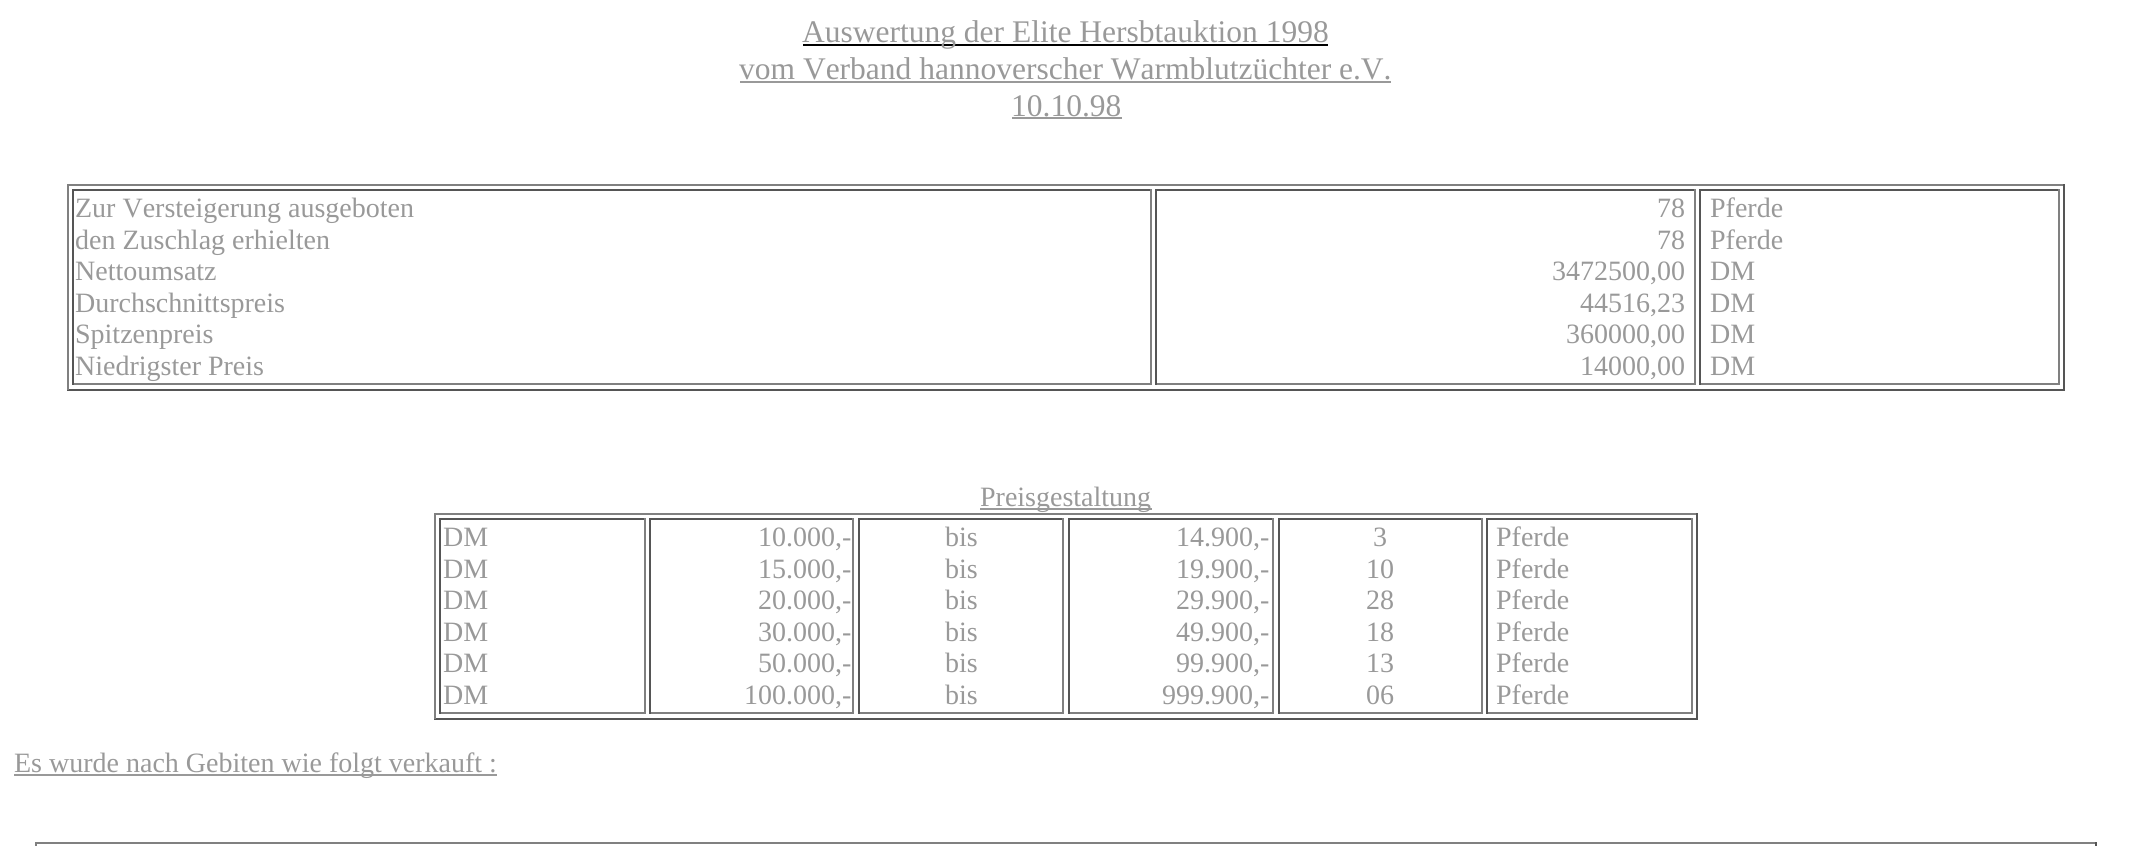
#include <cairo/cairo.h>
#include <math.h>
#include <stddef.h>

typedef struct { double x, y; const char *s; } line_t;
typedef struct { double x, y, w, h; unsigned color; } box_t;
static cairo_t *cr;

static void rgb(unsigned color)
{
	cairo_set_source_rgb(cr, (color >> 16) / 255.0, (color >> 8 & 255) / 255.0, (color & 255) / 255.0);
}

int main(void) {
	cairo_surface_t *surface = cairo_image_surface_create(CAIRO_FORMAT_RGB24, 2131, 846);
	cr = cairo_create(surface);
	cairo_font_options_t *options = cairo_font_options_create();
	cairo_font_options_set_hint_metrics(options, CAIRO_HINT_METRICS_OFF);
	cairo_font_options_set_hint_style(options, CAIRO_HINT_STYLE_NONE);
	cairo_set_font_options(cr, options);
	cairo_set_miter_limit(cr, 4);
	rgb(0xffffff);
	cairo_paint(cr);
	{
		static const box_t items[] = {
			{803, 44, 525, 2, 0x000000},
			{740, 81, 651, 2, 0x999999},
			{1012, 117, 110, 2, 0x999999},
			{67, 184, 1998, 2, 0x808080},
			{2063, 184, 2, 206, 0x555555},
			{67, 389, 1998, 2, 0x555555},
			{67, 184, 2, 206, 0x808080},
			{72, 189, 1080, 2, 0x555555},
			{1150, 189, 2, 196, 0x808080},
			{72, 383, 1080, 2, 0x808080},
			{72, 189, 2, 196, 0x555555},
			{1155, 189, 541, 2, 0x555555},
			{1694, 189, 2, 196, 0x808080},
			{1155, 383, 541, 2, 0x808080},
			{1155, 189, 2, 196, 0x555555},
			{1699, 189, 361, 2, 0x555555},
			{2058, 189, 2, 196, 0x808080},
			{1699, 383, 361, 2, 0x808080},
			{1699, 189, 2, 196, 0x555555},
			{980, 508, 172, 2, 0x999999},
			{434, 513, 1264, 2, 0x808080},
			{1696, 513, 2, 206, 0x555555},
			{434, 718, 1264, 2, 0x555555},
			{434, 513, 2, 206, 0x808080},
			{439, 518, 207, 2, 0x555555},
			{644, 518, 2, 196, 0x808080},
			{439, 712, 207, 2, 0x808080},
			{439, 518, 2, 196, 0x555555},
			{649, 518, 205, 2, 0x555555},
			{852, 518, 2, 196, 0x808080},
			{649, 712, 205, 2, 0x808080},
			{649, 518, 2, 196, 0x555555},
			{858, 518, 206, 2, 0x555555},
			{1062, 518, 2, 196, 0x808080},
			{858, 712, 206, 2, 0x808080},
			{858, 518, 2, 196, 0x555555},
			{1068, 518, 206, 2, 0x555555},
			{1272, 518, 2, 196, 0x808080},
			{1068, 712, 206, 2, 0x808080},
			{1068, 518, 2, 196, 0x555555},
			{1278, 518, 204, 2, 0x555555},
			{1481, 518, 2, 196, 0x808080},
			{1278, 712, 204, 2, 0x808080},
			{1278, 518, 2, 196, 0x555555},
			{1486, 518, 206, 2, 0x555555},
			{1691, 518, 2, 196, 0x808080},
			{1486, 712, 206, 2, 0x808080},
			{1486, 518, 2, 196, 0x555555},
			{14, 774, 483, 2, 0x999999},
			{35, 842, 2062, 2, 0x808080},
			{2095, 842, 2, 4, 0x555555},
			{35, 842, 2, 4, 0x808080},
		};
		for (size_t i = 0; i < sizeof items / sizeof *items; i++) {
			rgb(items[i].color);
			cairo_rectangle(cr, items[i].x, items[i].y, items[i].w, items[i].h);
			cairo_fill(cr);
		}
	}
	cairo_select_font_face(cr, "Liberation Serif", CAIRO_FONT_SLANT_NORMAL, CAIRO_FONT_WEIGHT_NORMAL);
	cairo_set_font_size(cr, 31.5);
	rgb(0x999999);
	{
		static const line_t items[] = {
			{802, 42, "Auswertung der Elite Hersbtauktion 1998"},
			{739, 79, "vom Verband hannoverscher Warmblutzüchter e.V."},
			{1011, 116, "10.10.98"},
		};
		for (size_t i = 0; i < sizeof items / sizeof *items; i++) {
			cairo_move_to(cr, items[i].x, items[i].y);
			cairo_show_text(cr, items[i].s);
		}
	}
	cairo_set_font_size(cr, 28);
	{
		static const line_t items[] = {
			{75, 217, "Zur Versteigerung ausgeboten"},
			{75, 249, "den Zuschlag erhielten"},
			{75, 280, "Nettoumsatz"},
			{75, 312, "Durchschnittspreis"},
			{75, 343, "Spitzenpreis"},
			{75, 375, "Niedrigster Preis"},
			{1657, 217, "78"},
			{1657, 249, "78"},
			{1552, 280, "3472500,00"},
			{1580, 312, "44516,23"},
			{1566, 343, "360000,00"},
			{1580, 375, "14000,00"},
			{1710, 217, "Pferde"},
			{1710, 249, "Pferde"},
			{1710, 280, "DM"},
			{1710, 312, "DM"},
			{1710, 343, "DM"},
			{1710, 375, "DM"},
			{980, 506, "Preisgestaltung"},
			{443, 546, "DM"},
			{443, 578, "DM"},
			{443, 609, "DM"},
			{443, 641, "DM"},
			{443, 672, "DM"},
			{443, 704, "DM"},
			{758, 546, "10.000,-"},
			{758, 578, "15.000,-"},
			{758, 609, "20.000,-"},
			{758, 641, "30.000,-"},
			{758, 672, "50.000,-"},
			{744, 704, "100.000,-"},
			{945, 546, "bis"},
			{945, 578, "bis"},
			{945, 609, "bis"},
			{945, 641, "bis"},
			{945, 672, "bis"},
			{945, 704, "bis"},
			{1176, 546, "14.900,-"},
			{1176, 578, "19.900,-"},
			{1176, 609, "29.900,-"},
			{1176, 641, "49.900,-"},
			{1176, 672, "99.900,-"},
			{1162, 704, "999.900,-"},
			{1373, 546, "3"},
			{1366, 578, "10"},
			{1366, 609, "28"},
			{1366, 641, "18"},
			{1366, 672, "13"},
			{1366, 704, "06"},
			{1496, 546, "Pferde"},
			{1496, 578, "Pferde"},
			{1496, 609, "Pferde"},
			{1496, 641, "Pferde"},
			{1496, 672, "Pferde"},
			{1496, 704, "Pferde"},
			{14, 772, "Es wurde nach Gebiten wie folgt verkauft :"},
		};
		for (size_t i = 0; i < sizeof items / sizeof *items; i++) {
			cairo_move_to(cr, items[i].x, items[i].y);
			cairo_show_text(cr, items[i].s);
		}
	}
	cairo_surface_write_to_png(surface, "page.png");
	cairo_font_options_destroy(options);
	cairo_destroy(cr);
	cairo_surface_destroy(surface);
	return 0;
}
